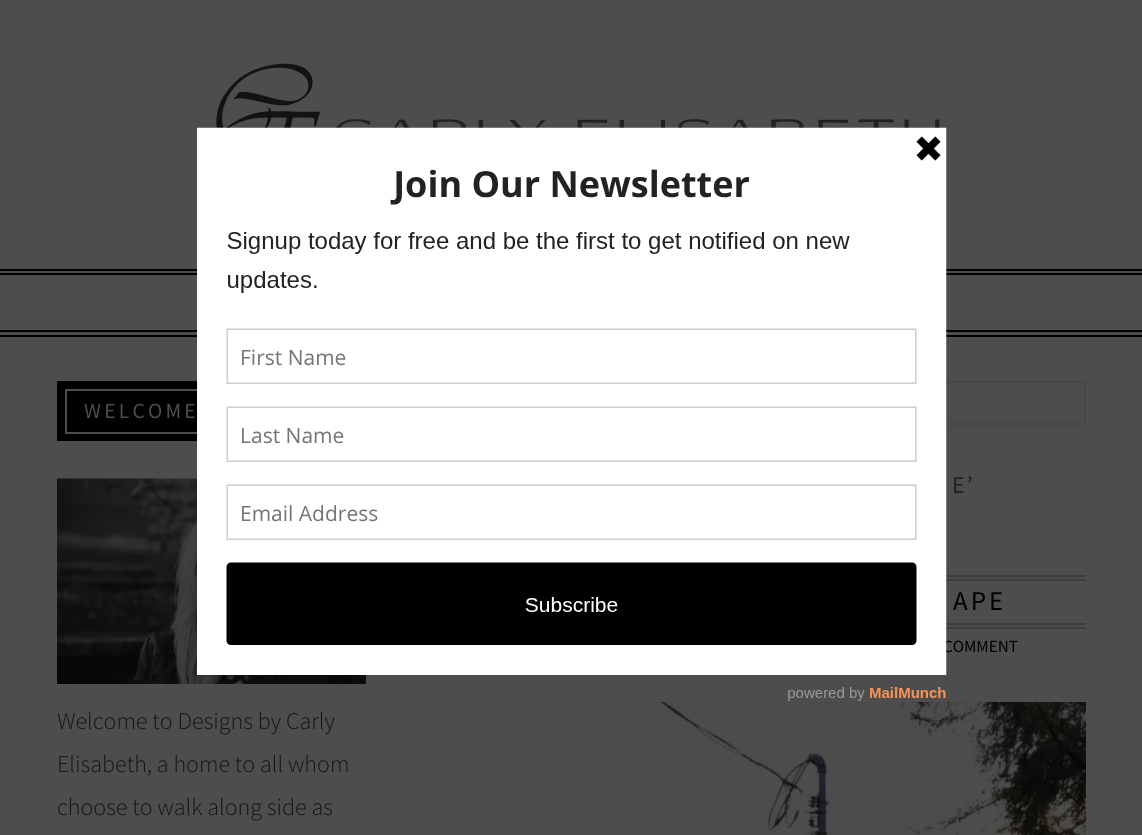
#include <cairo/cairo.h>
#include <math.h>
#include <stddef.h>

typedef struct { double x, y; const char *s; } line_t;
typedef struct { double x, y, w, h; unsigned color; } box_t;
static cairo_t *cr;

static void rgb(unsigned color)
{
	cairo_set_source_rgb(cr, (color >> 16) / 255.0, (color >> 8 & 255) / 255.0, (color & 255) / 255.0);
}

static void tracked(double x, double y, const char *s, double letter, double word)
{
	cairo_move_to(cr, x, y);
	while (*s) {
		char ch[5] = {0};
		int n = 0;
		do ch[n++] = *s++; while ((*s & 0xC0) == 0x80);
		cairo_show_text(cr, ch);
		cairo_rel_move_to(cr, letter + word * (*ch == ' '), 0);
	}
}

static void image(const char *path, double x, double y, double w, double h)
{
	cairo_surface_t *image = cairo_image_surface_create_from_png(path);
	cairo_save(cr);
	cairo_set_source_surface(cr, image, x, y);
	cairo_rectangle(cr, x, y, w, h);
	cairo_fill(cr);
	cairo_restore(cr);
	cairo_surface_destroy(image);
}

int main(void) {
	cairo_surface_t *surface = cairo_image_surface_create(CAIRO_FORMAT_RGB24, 1142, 835);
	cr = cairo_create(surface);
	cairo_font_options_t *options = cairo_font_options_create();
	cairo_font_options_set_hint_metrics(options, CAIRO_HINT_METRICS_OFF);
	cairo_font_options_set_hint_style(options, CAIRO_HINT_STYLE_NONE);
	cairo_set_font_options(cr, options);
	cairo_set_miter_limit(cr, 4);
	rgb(0x4d4d4d);
	cairo_paint(cr);
	image("img/2.png", 216, 63, 724, 65);
	{
		static const box_t items[] = {
			{0, 269, 1142, 2, 0x000000},
			{0, 273, 1142, 2, 0x000000},
			{0, 330, 1142, 2, 0x000000},
			{0, 335, 1142, 2, 0x000000},
			{57, 381, 140, 60, 0x000000},
		};
		for (size_t i = 0; i < sizeof items / sizeof *items; i++) {
			rgb(items[i].color);
			cairo_rectangle(cr, items[i].x, items[i].y, items[i].w, items[i].h);
			cairo_fill(cr);
		}
	}
	cairo_rectangle(cr, 66, 390, 292, 43);
	rgb(0x4d4d4d);
	cairo_stroke(cr);
	image("img/3.png", 57, 478, 309, 206);
	cairo_rectangle(cr, 469, 382, 616, 42);
	rgb(0x474747);
	cairo_stroke(cr);
	{
		static const box_t items[] = {
			{946, 575, 140, 2, 0x3d3d3d},
			{946, 579, 140, 2, 0x3d3d3d},
			{946, 623, 140, 2, 0x3d3d3d},
			{946, 627, 140, 2, 0x3d3d3d},
		};
		for (size_t i = 0; i < sizeof items / sizeof *items; i++) {
			rgb(items[i].color);
			cairo_rectangle(cr, items[i].x, items[i].y, items[i].w, items[i].h);
			cairo_fill(cr);
		}
	}
	image("img/4.png", 645, 702, 441, 133);
	cairo_select_font_face(cr, "Source Sans Pro", CAIRO_FONT_SLANT_NORMAL, CAIRO_FONT_WEIGHT_NORMAL);
	cairo_set_font_size(cr, 21.5);
	rgb(0x4d4d4d);
	tracked(84, 418, "WELCOME", 3.25, 0);
	cairo_select_font_face(cr, "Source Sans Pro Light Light", CAIRO_FONT_SLANT_NORMAL, CAIRO_FONT_WEIGHT_NORMAL);
	cairo_set_font_size(cr, 24);
	rgb(0x141414);
	{
		static const line_t items[] = {
			{57, 729, "Welcome to Designs by Carly"},
			{57, 772, "Elisabeth, a home to all whom"},
			{57, 815, "choose to walk along side as"},
		};
		for (size_t i = 0; i < sizeof items / sizeof *items; i++) {
			cairo_move_to(cr, items[i].x, items[i].y);
			cairo_show_text(cr, items[i].s);
		}
	}
	cairo_select_font_face(cr, "Source Sans Pro", CAIRO_FONT_SLANT_NORMAL, CAIRO_FONT_WEIGHT_NORMAL);
	rgb(0x1f1f1f);
	tracked(952, 493, "E’", 2, 0);
	cairo_set_font_size(cr, 27);
	rgb(0x000000);
	tracked(953, 610, "APE", 3, 0);
	cairo_set_font_size(cr, 17);
	cairo_move_to(cr, 943, 652);
	cairo_show_text(cr, "COMMENT");
	image("img/1.png", 197, 127, 750, 574);
	cairo_surface_write_to_png(surface, "page.png");
	cairo_font_options_destroy(options);
	cairo_destroy(cr);
	cairo_surface_destroy(surface);
	return 0;
}
